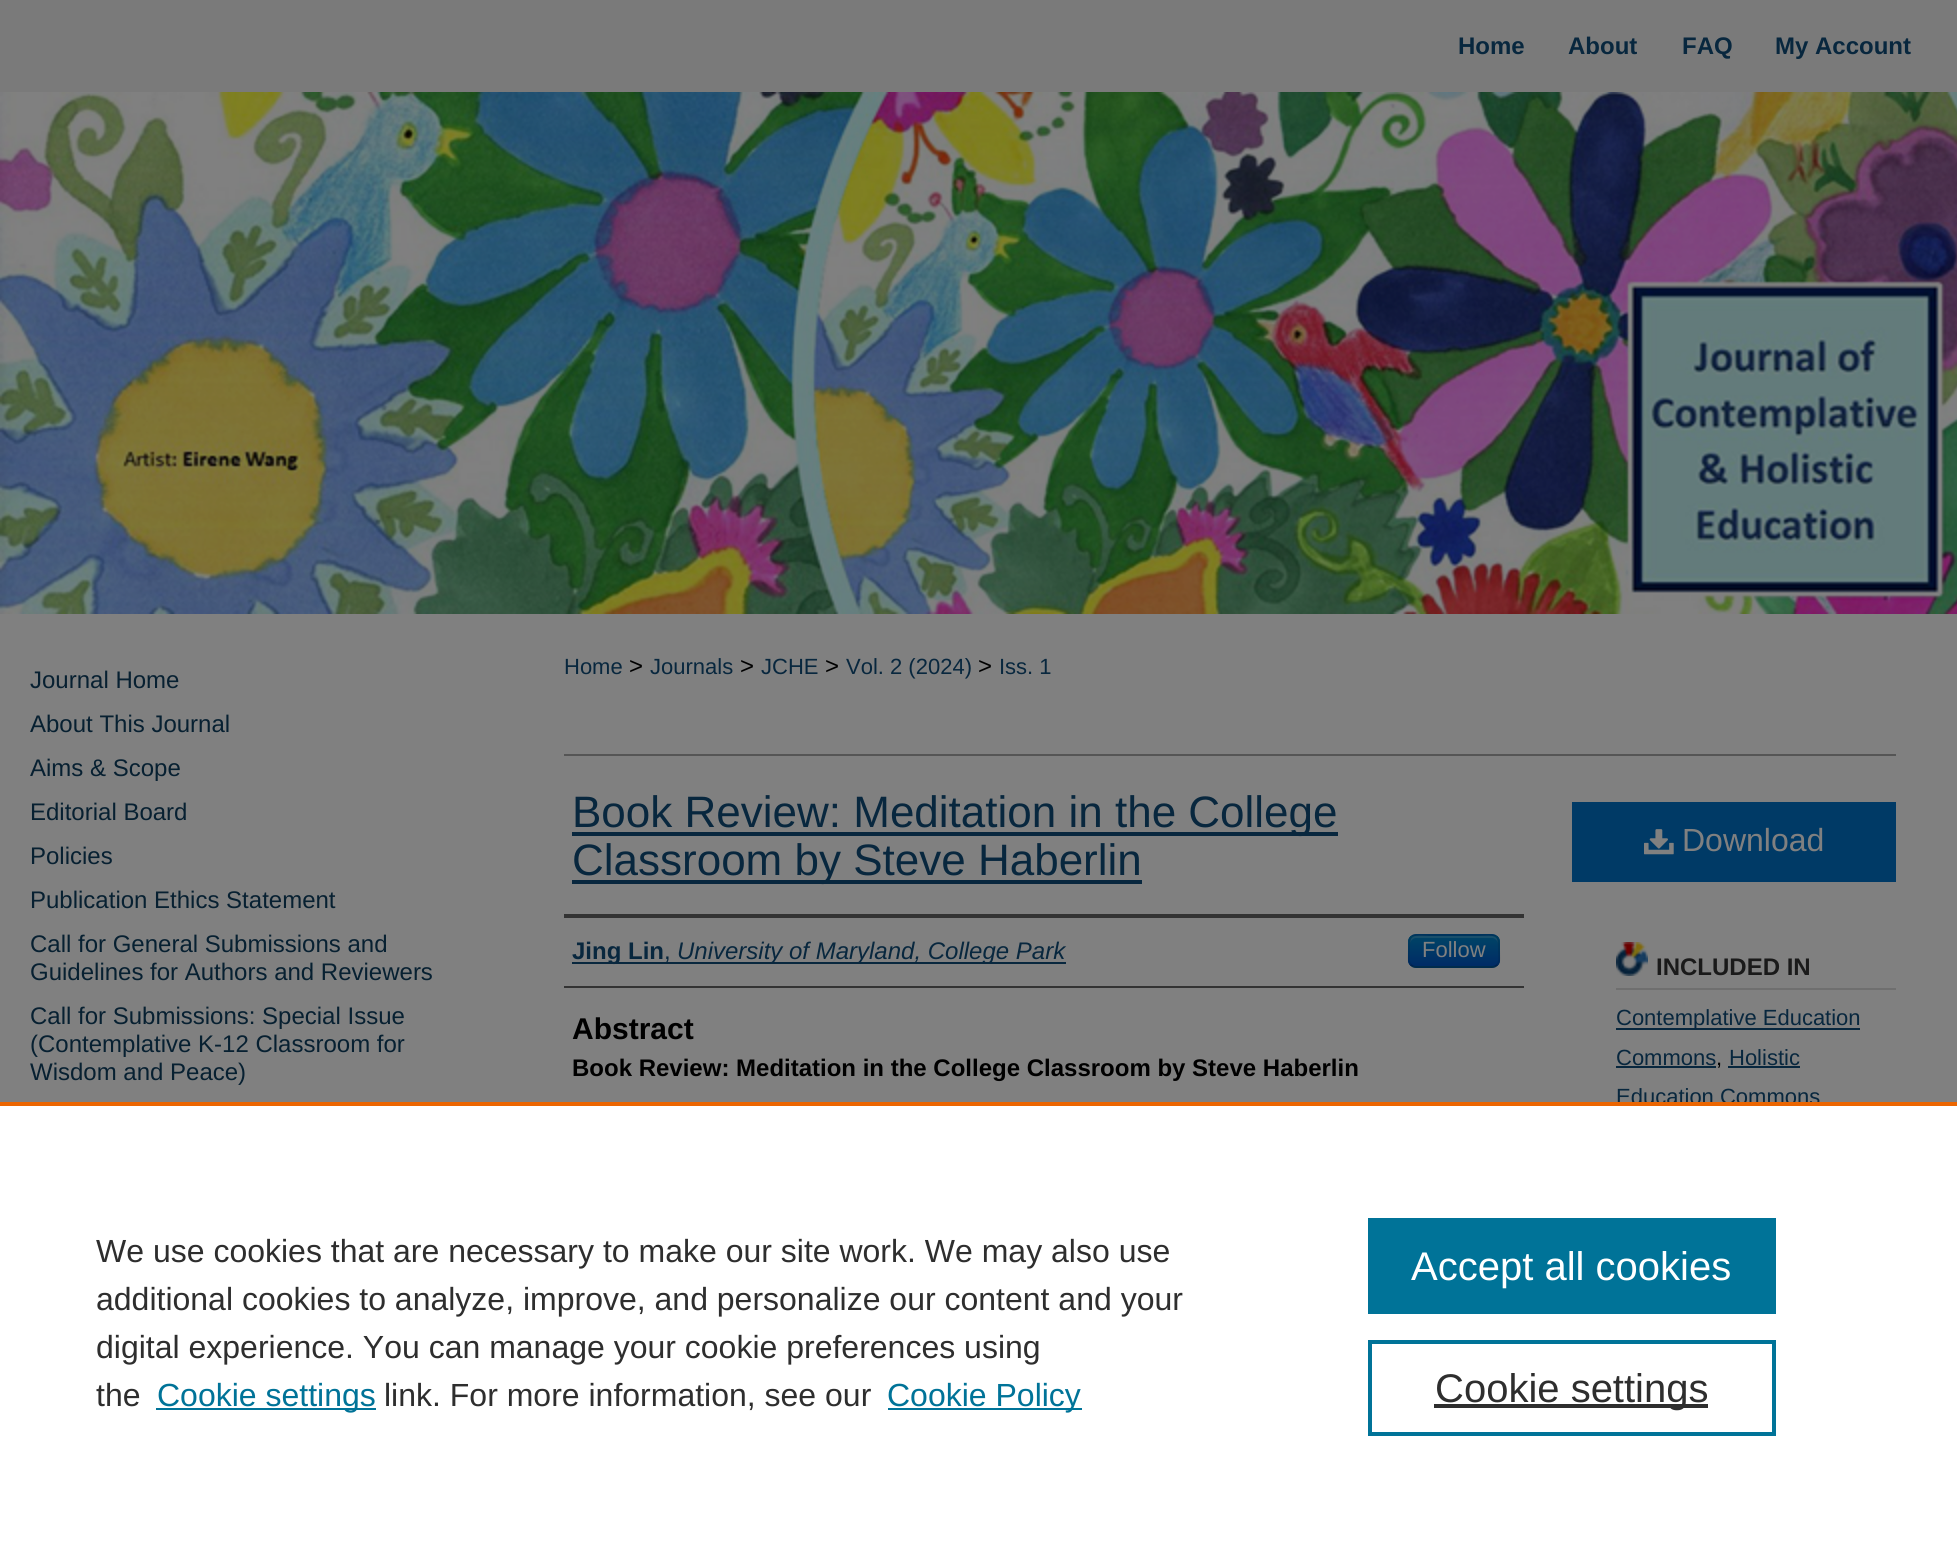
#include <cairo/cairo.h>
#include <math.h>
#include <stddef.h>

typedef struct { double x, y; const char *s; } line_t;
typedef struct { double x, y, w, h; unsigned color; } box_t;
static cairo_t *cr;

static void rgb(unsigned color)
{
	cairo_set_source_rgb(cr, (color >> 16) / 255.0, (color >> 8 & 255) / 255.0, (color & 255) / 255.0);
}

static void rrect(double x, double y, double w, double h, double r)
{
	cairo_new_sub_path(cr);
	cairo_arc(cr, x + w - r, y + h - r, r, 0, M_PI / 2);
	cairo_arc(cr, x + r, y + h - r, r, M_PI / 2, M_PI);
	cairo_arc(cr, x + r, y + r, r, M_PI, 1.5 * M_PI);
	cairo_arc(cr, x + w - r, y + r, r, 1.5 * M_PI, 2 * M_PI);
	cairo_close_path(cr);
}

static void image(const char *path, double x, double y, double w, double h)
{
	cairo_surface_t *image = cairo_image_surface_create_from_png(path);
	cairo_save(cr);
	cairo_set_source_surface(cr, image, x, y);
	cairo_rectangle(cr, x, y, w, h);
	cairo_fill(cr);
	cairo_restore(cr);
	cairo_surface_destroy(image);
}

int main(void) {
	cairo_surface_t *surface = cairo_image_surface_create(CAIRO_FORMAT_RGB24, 1957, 1542);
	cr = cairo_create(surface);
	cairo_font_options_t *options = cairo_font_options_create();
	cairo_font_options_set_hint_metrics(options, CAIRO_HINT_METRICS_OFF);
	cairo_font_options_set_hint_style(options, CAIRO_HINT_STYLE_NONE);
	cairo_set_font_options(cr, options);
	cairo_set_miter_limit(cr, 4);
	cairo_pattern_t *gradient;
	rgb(0x808080);
	cairo_paint(cr);
	rgb(0x7a7a7a);
	cairo_rectangle(cr, 0, 0, 1957, 92);
	cairo_fill(cr);
	image("img/1.png", 0, 92, 1957, 522);
	{
		static const box_t items[] = {
			{564, 754, 1332, 2, 0x555555},
			{572, 832, 766, 4, 0x08273e},
			{572, 880, 570, 4, 0x08273e},
			{564, 914, 960, 4, 0x333333},
			{564, 986, 960, 2, 0x333333},
			{572, 962, 494, 2, 0x08273e},
		};
		for (size_t i = 0; i < sizeof items / sizeof *items; i++) {
			rgb(items[i].color);
			cairo_rectangle(cr, items[i].x, items[i].y, items[i].w, items[i].h);
			cairo_fill(cr);
		}
	}
	rgb(0x003a66);
	rrect(1408, 934, 92, 34, 8);
	cairo_fill(cr);
	cairo_save(cr);
	rrect(1408, 934, 92, 34, 8);
	cairo_clip(cr);
	gradient = cairo_pattern_create_linear(1454, 936, 1454, 966);
	cairo_pattern_add_color_stop_rgba(gradient, 0, 0, 0.267, 0.4, 1);
	cairo_pattern_add_color_stop_rgba(gradient, 1, 0, 0.169, 0.4, 1);
	cairo_set_source(cr, gradient);
	cairo_pattern_destroy(gradient);
	cairo_rectangle(cr, 1408, 936, 92, 30);
	cairo_fill(cr);
	cairo_restore(cr);
	cairo_set_source_rgba(cr, 0.502, 0.502, 0.502, 0.2);
	cairo_new_path(cr);
	cairo_move_to(cr, 1416, 938);
	cairo_line_to(cr, 1492, 938);
	cairo_curve_to(cr, 1495, 938, 1498, 941, 1498, 944);
	cairo_curve_to(cr, 1498, 933, 1488, 936, 1479, 936);
	cairo_line_to(cr, 1429, 936);
	cairo_curve_to(cr, 1420, 936, 1410, 933, 1410, 944);
	cairo_curve_to(cr, 1410, 941, 1413, 938, 1416, 938);
	cairo_close_path(cr);
	cairo_fill(cr);
	cairo_new_path(cr);
	cairo_move_to(cr, 1497, 965);
	cairo_curve_to(cr, 1495.5, 966.5, 1494, 967, 1492, 967);
	cairo_line_to(cr, 1416, 967);
	cairo_curve_to(cr, 1414, 967, 1412.5, 966.5, 1411, 965);
	cairo_set_source_rgba(cr, 0, 0, 0, 0.25);
	cairo_stroke(cr);
	cairo_new_path(cr);
	cairo_move_to(cr, 1411, 965);
	cairo_curve_to(cr, 1407.5, 961.5, 1409, 955.5, 1409, 951);
	cairo_curve_to(cr, 1409, 933, 1410, 935, 1428.5, 935);
	cairo_line_to(cr, 1479.5, 935);
	cairo_curve_to(cr, 1498, 935, 1499, 933, 1499, 951);
	cairo_curve_to(cr, 1499, 955.5, 1500.5, 961.5, 1497, 965);
	cairo_set_source_rgba(cr, 0, 0, 0, 0.1);
	cairo_stroke(cr);
	rgb(0x003a66);
	cairo_rectangle(cr, 1572, 802, 324, 80);
	cairo_fill(cr);
	image("img/2.png", 1644, 829, 30, 26);
	image("img/3.png", 1616, 942, 32, 34);
	{
		static const box_t items[] = {
			{1616, 988, 280, 2, 0x6f6f6f},
			{1616, 1028, 244, 2, 0x08273e},
			{1616, 1066, 100, 2, 0x08273e},
			{1728, 1066, 72, 2, 0x08273e},
			{0, 1106, 1957, 436, 0xffffff},
			{156, 1408, 220, 2, 0x007398},
			{888, 1408, 194, 2, 0x007398},
			{1368, 1218, 408, 96, 0x007398},
		};
		for (size_t i = 0; i < sizeof items / sizeof *items; i++) {
			rgb(items[i].color);
			cairo_rectangle(cr, items[i].x, items[i].y, items[i].w, items[i].h);
			cairo_fill(cr);
		}
	}
	cairo_rectangle(cr, 1370, 1342, 404, 92);
	cairo_set_line_width(cr, 4);
	cairo_stroke(cr);
	rgb(0x2e2e2e);
	cairo_rectangle(cr, 1434, 1404, 274, 4);
	cairo_fill(cr);
	cairo_select_font_face(cr, "Liberation Sans", CAIRO_FONT_SLANT_NORMAL, CAIRO_FONT_WEIGHT_BOLD);
	cairo_set_font_size(cr, 24);
	rgb(0x08273e);
	{
		static const line_t items[] = {
			{1458, 54, "Home"},
			{1568, 54, "About"},
			{1682, 54, "FAQ"},
			{1775, 54, "My Account"},
		};
		for (size_t i = 0; i < sizeof items / sizeof *items; i++) {
			cairo_move_to(cr, items[i].x, items[i].y);
			cairo_show_text(cr, items[i].s);
		}
	}
	cairo_select_font_face(cr, "Liberation Sans", CAIRO_FONT_SLANT_NORMAL, CAIRO_FONT_WEIGHT_NORMAL);
	rgb(0x072031);
	{
		static const line_t items[] = {
			{30, 688, "Journal Home"},
			{30, 732, "About This Journal"},
			{30, 776, "Aims & Scope"},
			{30, 820, "Editorial Board"},
			{30, 864, "Policies"},
			{30, 908, "Publication Ethics Statement"},
			{30, 952, "Call for General Submissions and"},
			{30, 980, "Guidelines for Authors and Reviewers"},
			{30, 1024, "Call for Submissions: Special Issue"},
			{30, 1052, "(Contemplative K-12 Classroom for"},
			{30, 1080, "Wisdom and Peace)"},
		};
		for (size_t i = 0; i < sizeof items / sizeof *items; i++) {
			cairo_move_to(cr, items[i].x, items[i].y);
			cairo_show_text(cr, items[i].s);
		}
	}
	cairo_set_font_size(cr, 22);
	rgb(0x08273e);
	cairo_move_to(cr, 564, 674);
	cairo_show_text(cr, "Home");
	cairo_set_font_size(cr, 24);
	rgb(0x000000);
	cairo_move_to(cr, 629, 674);
	cairo_show_text(cr, ">");
	cairo_set_font_size(cr, 22);
	rgb(0x08273e);
	cairo_move_to(cr, 650, 674);
	cairo_show_text(cr, "Journals");
	cairo_set_font_size(cr, 24);
	rgb(0x000000);
	cairo_move_to(cr, 740, 674);
	cairo_show_text(cr, ">");
	cairo_set_font_size(cr, 22);
	rgb(0x08273e);
	cairo_move_to(cr, 761, 674);
	cairo_show_text(cr, "JCHE");
	cairo_set_font_size(cr, 24);
	rgb(0x000000);
	cairo_move_to(cr, 825, 674);
	cairo_show_text(cr, ">");
	cairo_set_font_size(cr, 22);
	rgb(0x08273e);
	cairo_move_to(cr, 846, 674);
	cairo_show_text(cr, "Vol. 2 (2024)");
	cairo_set_font_size(cr, 24);
	rgb(0x000000);
	cairo_move_to(cr, 978, 674);
	cairo_show_text(cr, ">");
	cairo_set_font_size(cr, 22);
	rgb(0x08273e);
	cairo_move_to(cr, 999, 674);
	cairo_show_text(cr, "Iss. 1");
	cairo_set_font_size(cr, 44);
	cairo_move_to(cr, 572, 827);
	cairo_show_text(cr, "Book Review: Meditation in the College");
	cairo_move_to(cr, 572, 875);
	cairo_show_text(cr, "Classroom by Steve Haberlin");
	cairo_select_font_face(cr, "Liberation Sans", CAIRO_FONT_SLANT_NORMAL, CAIRO_FONT_WEIGHT_BOLD);
	cairo_set_font_size(cr, 24);
	cairo_move_to(cr, 572, 959);
	cairo_show_text(cr, "Jing Lin");
	cairo_select_font_face(cr, "Liberation Sans", CAIRO_FONT_SLANT_NORMAL, CAIRO_FONT_WEIGHT_NORMAL);
	cairo_move_to(cr, 664, 959);
	cairo_show_text(cr, ",");
	cairo_select_font_face(cr, "Liberation Sans", CAIRO_FONT_SLANT_ITALIC, CAIRO_FONT_WEIGHT_NORMAL);
	cairo_move_to(cr, 677, 959);
	cairo_show_text(cr, "University of Maryland, College Park");
	cairo_select_font_face(cr, "Liberation Sans", CAIRO_FONT_SLANT_NORMAL, CAIRO_FONT_WEIGHT_NORMAL);
	cairo_set_font_size(cr, 22);
	rgb(0x808080);
	cairo_move_to(cr, 1422, 957);
	cairo_show_text(cr, "Follow");
	cairo_select_font_face(cr, "Liberation Sans", CAIRO_FONT_SLANT_NORMAL, CAIRO_FONT_WEIGHT_BOLD);
	cairo_set_font_size(cr, 30);
	rgb(0x000000);
	cairo_move_to(cr, 572, 1039);
	cairo_show_text(cr, "Abstract");
	cairo_set_font_size(cr, 24);
	cairo_move_to(cr, 572, 1076);
	cairo_show_text(cr, "Book Review: Meditation in the College Classroom by Steve Haberlin");
	cairo_select_font_face(cr, "Liberation Sans", CAIRO_FONT_SLANT_NORMAL, CAIRO_FONT_WEIGHT_NORMAL);
	cairo_set_font_size(cr, 32);
	rgb(0x808080);
	cairo_move_to(cr, 1682, 851);
	cairo_show_text(cr, "Download");
	cairo_select_font_face(cr, "Liberation Sans", CAIRO_FONT_SLANT_NORMAL, CAIRO_FONT_WEIGHT_BOLD);
	cairo_set_font_size(cr, 24);
	rgb(0x1a1a1a);
	cairo_move_to(cr, 1656, 975);
	cairo_show_text(cr, "INCLUDED IN");
	cairo_select_font_face(cr, "Liberation Sans", CAIRO_FONT_SLANT_NORMAL, CAIRO_FONT_WEIGHT_NORMAL);
	cairo_set_font_size(cr, 22);
	rgb(0x08273e);
	cairo_move_to(cr, 1616, 1025);
	cairo_show_text(cr, "Contemplative Education");
	cairo_move_to(cr, 1616, 1065);
	cairo_show_text(cr, "Commons");
	rgb(0x000000);
	cairo_move_to(cr, 1716, 1065);
	cairo_show_text(cr, ",");
	rgb(0x08273e);
	cairo_move_to(cr, 1729, 1065);
	cairo_show_text(cr, "Holistic");
	cairo_move_to(cr, 1616, 1104);
	cairo_show_text(cr, "Education Commons");
	rgb(0xeb6500);
	cairo_rectangle(cr, 0, 1102, 1957, 4);
	cairo_fill(cr);
	cairo_set_font_size(cr, 32);
	rgb(0x2e2e2e);
	{
		static const line_t items[] = {
			{96, 1262, "We use cookies that are necessary to make our site work. We may also use"},
			{96, 1310, "additional cookies to analyze, improve, and personalize our content and your"},
			{96, 1358, "digital experience. You can manage your cookie preferences using"},
			{96, 1406, "the"},
		};
		for (size_t i = 0; i < sizeof items / sizeof *items; i++) {
			cairo_move_to(cr, items[i].x, items[i].y);
			cairo_show_text(cr, items[i].s);
		}
	}
	rgb(0x007398);
	cairo_move_to(cr, 157, 1406);
	cairo_show_text(cr, "Cookie settings");
	rgb(0x2e2e2e);
	cairo_move_to(cr, 384, 1406);
	cairo_show_text(cr, "link. For more information, see our");
	rgb(0x007398);
	cairo_move_to(cr, 887, 1406);
	cairo_show_text(cr, "Cookie Policy");
	cairo_set_font_size(cr, 40);
	rgb(0xffffff);
	cairo_move_to(cr, 1411, 1280);
	cairo_show_text(cr, "Accept all cookies");
	rgb(0x2e2e2e);
	cairo_move_to(cr, 1435, 1402);
	cairo_show_text(cr, "Cookie settings");
	cairo_surface_write_to_png(surface, "page.png");
	cairo_font_options_destroy(options);
	cairo_destroy(cr);
	cairo_surface_destroy(surface);
	return 0;
}
